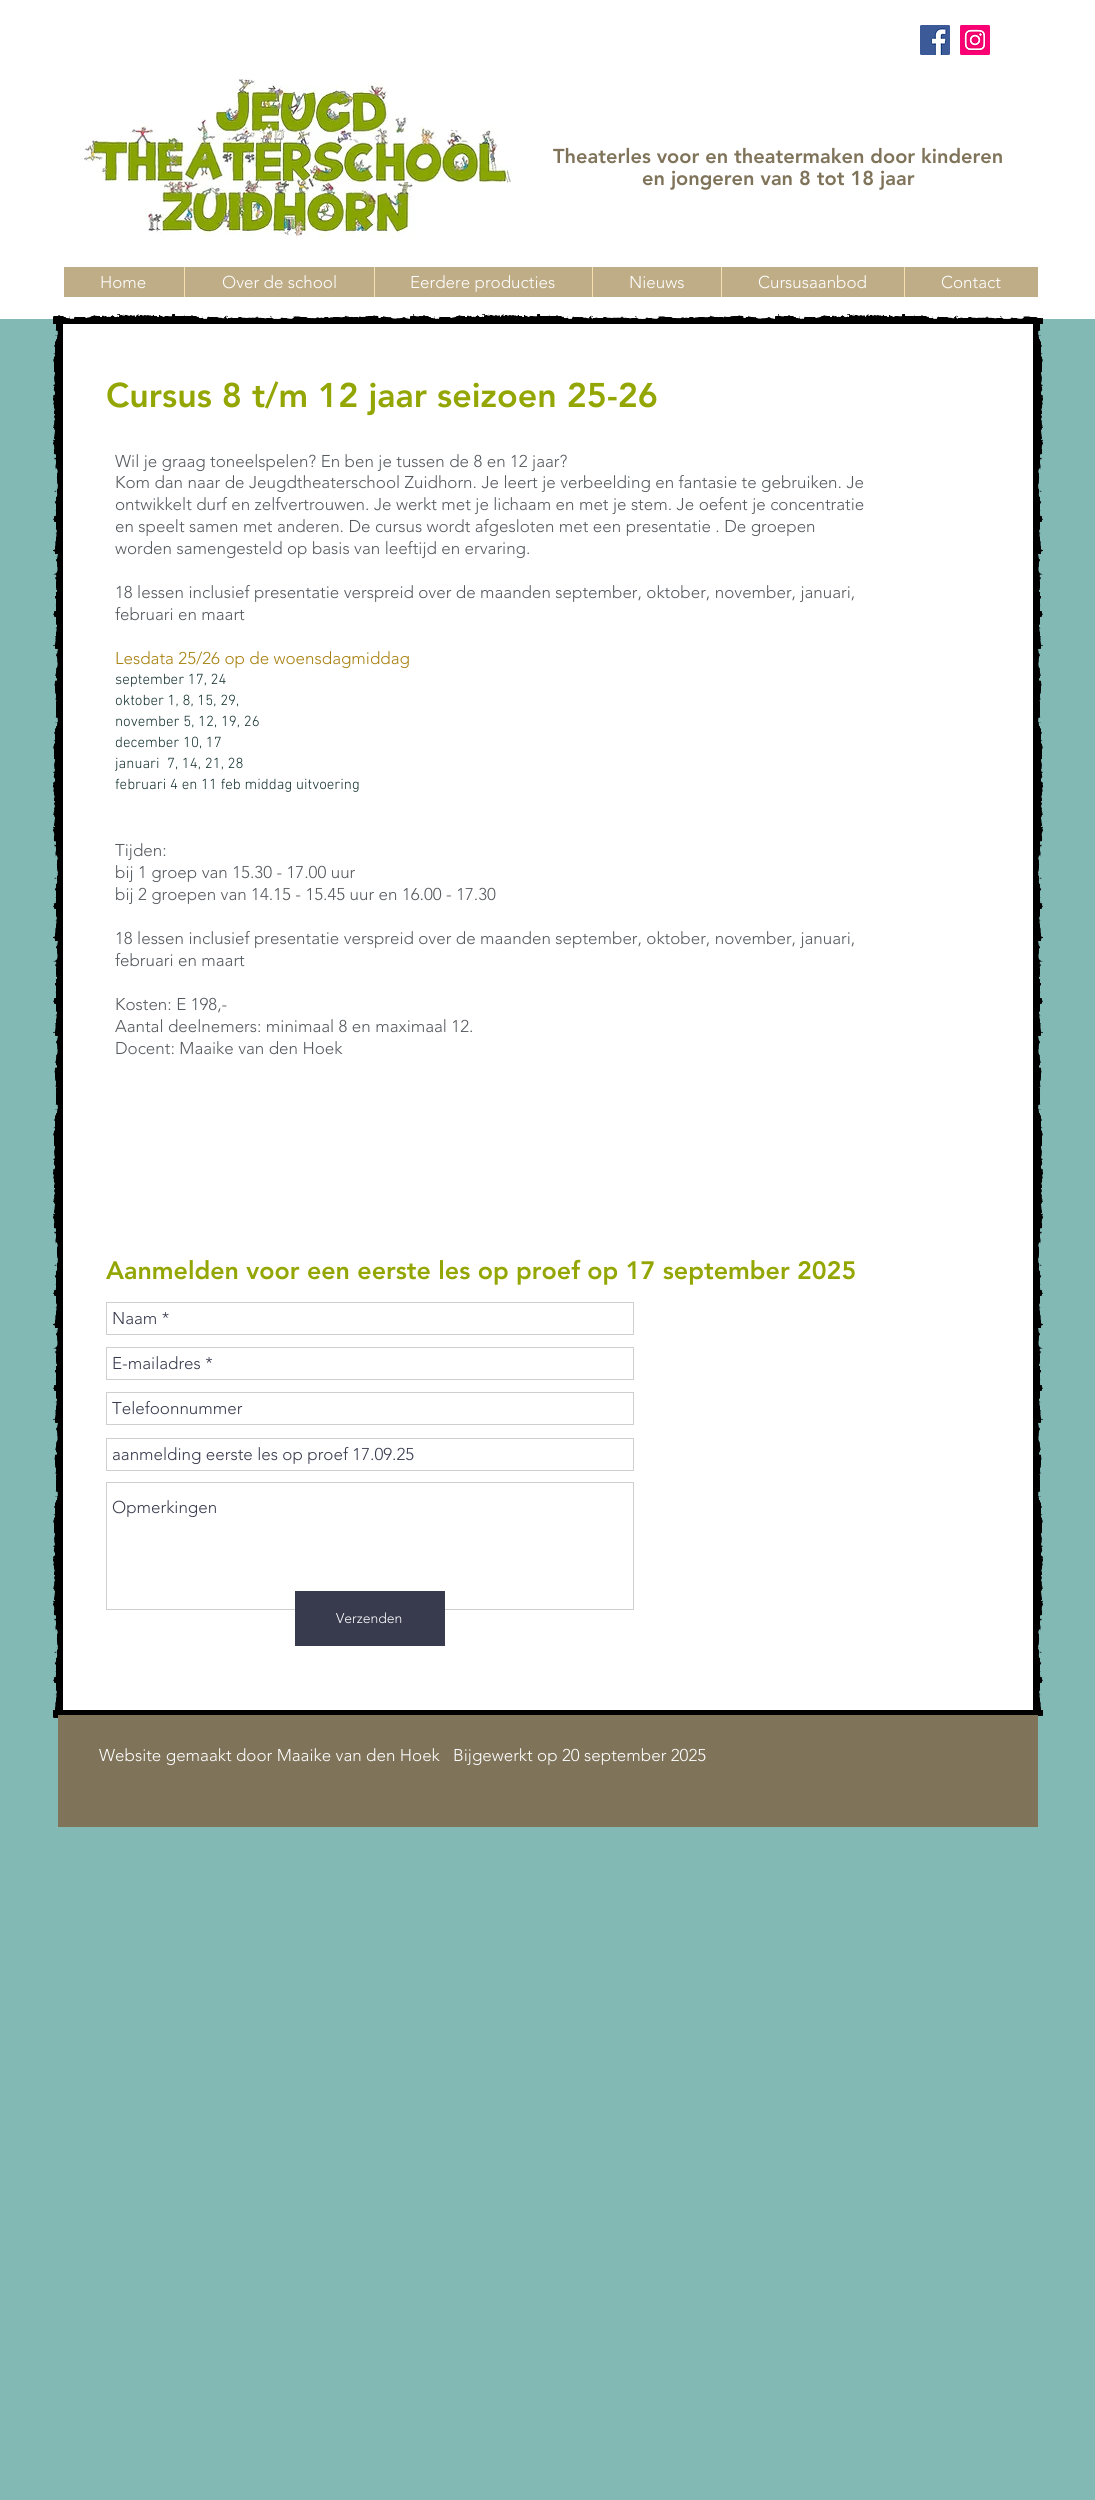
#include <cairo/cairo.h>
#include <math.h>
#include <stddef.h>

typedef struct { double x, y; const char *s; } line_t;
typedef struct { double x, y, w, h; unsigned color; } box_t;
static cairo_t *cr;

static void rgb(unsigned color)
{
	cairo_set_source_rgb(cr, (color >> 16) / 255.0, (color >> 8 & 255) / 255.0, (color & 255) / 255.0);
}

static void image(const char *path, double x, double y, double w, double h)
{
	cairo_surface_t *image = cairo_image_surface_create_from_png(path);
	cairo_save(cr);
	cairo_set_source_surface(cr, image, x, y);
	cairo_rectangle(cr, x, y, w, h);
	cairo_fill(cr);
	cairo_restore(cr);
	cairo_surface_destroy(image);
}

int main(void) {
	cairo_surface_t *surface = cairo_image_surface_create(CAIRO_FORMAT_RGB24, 1095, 2500);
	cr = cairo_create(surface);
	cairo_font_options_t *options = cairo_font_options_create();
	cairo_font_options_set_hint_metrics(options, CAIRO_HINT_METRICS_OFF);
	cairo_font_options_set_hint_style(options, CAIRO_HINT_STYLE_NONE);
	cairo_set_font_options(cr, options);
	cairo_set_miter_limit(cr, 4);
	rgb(0x82b9b5);
	cairo_paint(cr);
	rgb(0xffffff);
	cairo_rectangle(cr, 0, 0, 1095, 319);
	cairo_fill(cr);
	image("img/1.png", 920, 25, 30, 30);
	image("img/2.png", 960, 25, 30, 30);
	image("img/3.png", 84, 78, 428, 160);
	{
		static const box_t items[] = {
			{64, 267, 974, 30, 0xbfad87},
			{184, 267, 1, 30, 0xf7e0af},
			{374, 267, 1, 30, 0xf7e0af},
			{592, 267, 1, 30, 0xf7e0af},
			{721, 267, 1, 30, 0xf7e0af},
			{904, 267, 1, 30, 0xf7e0af},
			{63, 324, 970, 1386, 0xffffff},
		};
		for (size_t i = 0; i < sizeof items / sizeof *items; i++) {
			rgb(items[i].color);
			cairo_rectangle(cr, items[i].x, items[i].y, items[i].w, items[i].h);
			cairo_fill(cr);
		}
	}
	image("img/4.png", 53, 314, 990, 10);
	image("img/5.png", 53, 1710, 990, 8);
	image("img/6.png", 53, 324, 10, 1386);
	image("img/7.png", 1033, 324, 10, 1386);
	cairo_rectangle(cr, 106.5, 1302.5, 527, 32);
	rgb(0xcfcfcf);
	cairo_set_line_width(cr, 1);
	cairo_stroke(cr);
	cairo_rectangle(cr, 106.5, 1347.5, 527, 32);
	cairo_stroke(cr);
	cairo_rectangle(cr, 106.5, 1392.5, 527, 32);
	cairo_stroke(cr);
	cairo_rectangle(cr, 106.5, 1438.5, 527, 32);
	cairo_stroke(cr);
	cairo_rectangle(cr, 106.5, 1482.5, 527, 127);
	cairo_stroke(cr);
	rgb(0x373b4d);
	cairo_rectangle(cr, 295, 1591, 150, 55);
	cairo_fill(cr);
	rgb(0x7f735a);
	cairo_rectangle(cr, 58, 1715, 980, 112);
	cairo_fill(cr);
	cairo_select_font_face(cr, "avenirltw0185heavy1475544 Black", CAIRO_FONT_SLANT_NORMAL, CAIRO_FONT_WEIGHT_NORMAL);
	cairo_set_font_size(cr, 20);
	cairo_move_to(cr, 553, 163);
	cairo_show_text(cr, "Theaterles voor en theatermaken door kinderen");
	cairo_move_to(cr, 642, 185);
	cairo_show_text(cr, "en jongeren van 8 tot 18 jaar");
	cairo_select_font_face(cr, "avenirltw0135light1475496 Light", CAIRO_FONT_SLANT_NORMAL, CAIRO_FONT_WEIGHT_NORMAL);
	cairo_set_font_size(cr, 17);
	rgb(0xffffff);
	{
		static const line_t items[] = {
			{100, 288, "Home"},
			{222, 288, "Over de school"},
			{410, 288, "Eerdere producties"},
			{629, 288, "Nieuws"},
			{758, 288, "Cursusaanbod"},
			{941, 288, "Contact"},
		};
		for (size_t i = 0; i < sizeof items / sizeof *items; i++) {
			cairo_move_to(cr, items[i].x, items[i].y);
			cairo_show_text(cr, items[i].s);
		}
	}
	cairo_select_font_face(cr, "avenirltw0185heavy1475544 Black", CAIRO_FONT_SLANT_NORMAL, CAIRO_FONT_WEIGHT_NORMAL);
	cairo_set_font_size(cr, 34);
	rgb(0x93a603);
	cairo_move_to(cr, 106, 407);
	cairo_show_text(cr, "Cursus 8 t/m 12 jaar seizoen 25-26");
	cairo_select_font_face(cr, "avenirltw0135light1475496 Light", CAIRO_FONT_SLANT_NORMAL, CAIRO_FONT_WEIGHT_NORMAL);
	cairo_set_font_size(cr, 17);
	rgb(0x555a5f);
	{
		static const line_t items[] = {
			{115, 467, "Wil je graag toneelspelen? En ben je tussen de 8 en 12 jaar?"},
			{115, 488, "Kom dan naar de Jeugdtheaterschool Zuidhorn. Je leert je verbeelding en fantasie te gebruiken. Je"},
			{115, 510, "ontwikkelt durf en zelfvertrouwen. Je werkt met je lichaam en met je stem. Je oefent je concentratie"},
			{115, 532, "en speelt samen met anderen. De cursus wordt afgesloten met een presentatie . De groepen"},
			{115, 554, "worden samengesteld op basis van leeftijd en ervaring."},
			{115, 598, "18 lessen inclusief presentatie verspreid over de maanden september, oktober, november, januari,"},
			{115, 620, "februari en maart"},
		};
		for (size_t i = 0; i < sizeof items / sizeof *items; i++) {
			cairo_move_to(cr, items[i].x, items[i].y);
			cairo_show_text(cr, items[i].s);
		}
	}
	rgb(0xa78111);
	cairo_move_to(cr, 115, 664);
	cairo_show_text(cr, "Lesdata 25/26 op de woensdagmiddag");
	cairo_select_font_face(cr, "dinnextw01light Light", CAIRO_FONT_SLANT_NORMAL, CAIRO_FONT_WEIGHT_NORMAL);
	cairo_set_font_size(cr, 15);
	rgb(0x143230);
	{
		static const line_t items[] = {
			{115, 684, "september 17, 24"},
			{115, 705, "oktober 1, 8, 15, 29,"},
			{115, 726, "november 5, 12, 19, 26"},
			{115, 747, "december 10, 17"},
			{115, 768, "januari  7, 14, 21, 28"},
			{115, 789, "februari 4 en 11 feb middag uitvoering"},
		};
		for (size_t i = 0; i < sizeof items / sizeof *items; i++) {
			cairo_move_to(cr, items[i].x, items[i].y);
			cairo_show_text(cr, items[i].s);
		}
	}
	cairo_select_font_face(cr, "avenirltw0135light1475496 Light", CAIRO_FONT_SLANT_NORMAL, CAIRO_FONT_WEIGHT_NORMAL);
	cairo_set_font_size(cr, 17);
	rgb(0x555a5f);
	{
		static const line_t items[] = {
			{115, 856, "Tijden:"},
			{115, 878, "bij 1 groep van 15.30 - 17.00 uur"},
			{115, 900, "bij 2 groepen van 14.15 - 15.45 uur en 16.00 - 17.30"},
			{115, 944, "18 lessen inclusief presentatie verspreid over de maanden september, oktober, november, januari,"},
			{115, 966, "februari en maart"},
			{115, 1010, "Kosten: E 198,-"},
			{115, 1032, "Aantal deelnemers: minimaal 8 en maximaal 12."},
			{115, 1054, "Docent: Maaike van den Hoek"},
		};
		for (size_t i = 0; i < sizeof items / sizeof *items; i++) {
			cairo_move_to(cr, items[i].x, items[i].y);
			cairo_show_text(cr, items[i].s);
		}
	}
	cairo_select_font_face(cr, "avenirltw0185heavy1475544 Black", CAIRO_FONT_SLANT_NORMAL, CAIRO_FONT_WEIGHT_NORMAL);
	cairo_set_font_size(cr, 25);
	rgb(0x93a603);
	cairo_move_to(cr, 106, 1279);
	cairo_show_text(cr, "Aanmelden voor een eerste les op proef op 17 september 2025");
	cairo_select_font_face(cr, "avenirltw0135light1475496 Light", CAIRO_FONT_SLANT_NORMAL, CAIRO_FONT_WEIGHT_NORMAL);
	cairo_set_font_size(cr, 17);
	rgb(0x373b4d);
	{
		static const line_t items[] = {
			{112, 1324, "Naam *"},
			{112, 1369, "E-mailadres *"},
			{112, 1414, "Telefoonnummer"},
			{112, 1460, "aanmelding eerste les op proef 17.09.25"},
			{112, 1513, "Opmerkingen"},
		};
		for (size_t i = 0; i < sizeof items / sizeof *items; i++) {
			cairo_move_to(cr, items[i].x, items[i].y);
			cairo_show_text(cr, items[i].s);
		}
	}
	cairo_set_font_size(cr, 14);
	rgb(0xffffff);
	cairo_move_to(cr, 336, 1623);
	cairo_show_text(cr, "Verzenden");
	cairo_set_font_size(cr, 17);
	cairo_move_to(cr, 99, 1761);
	cairo_show_text(cr, "Website gemaakt door Maaike van den Hoek   Bijgewerkt op 20 september 2025");
	cairo_surface_write_to_png(surface, "page.png");
	cairo_font_options_destroy(options);
	cairo_destroy(cr);
	cairo_surface_destroy(surface);
	return 0;
}
